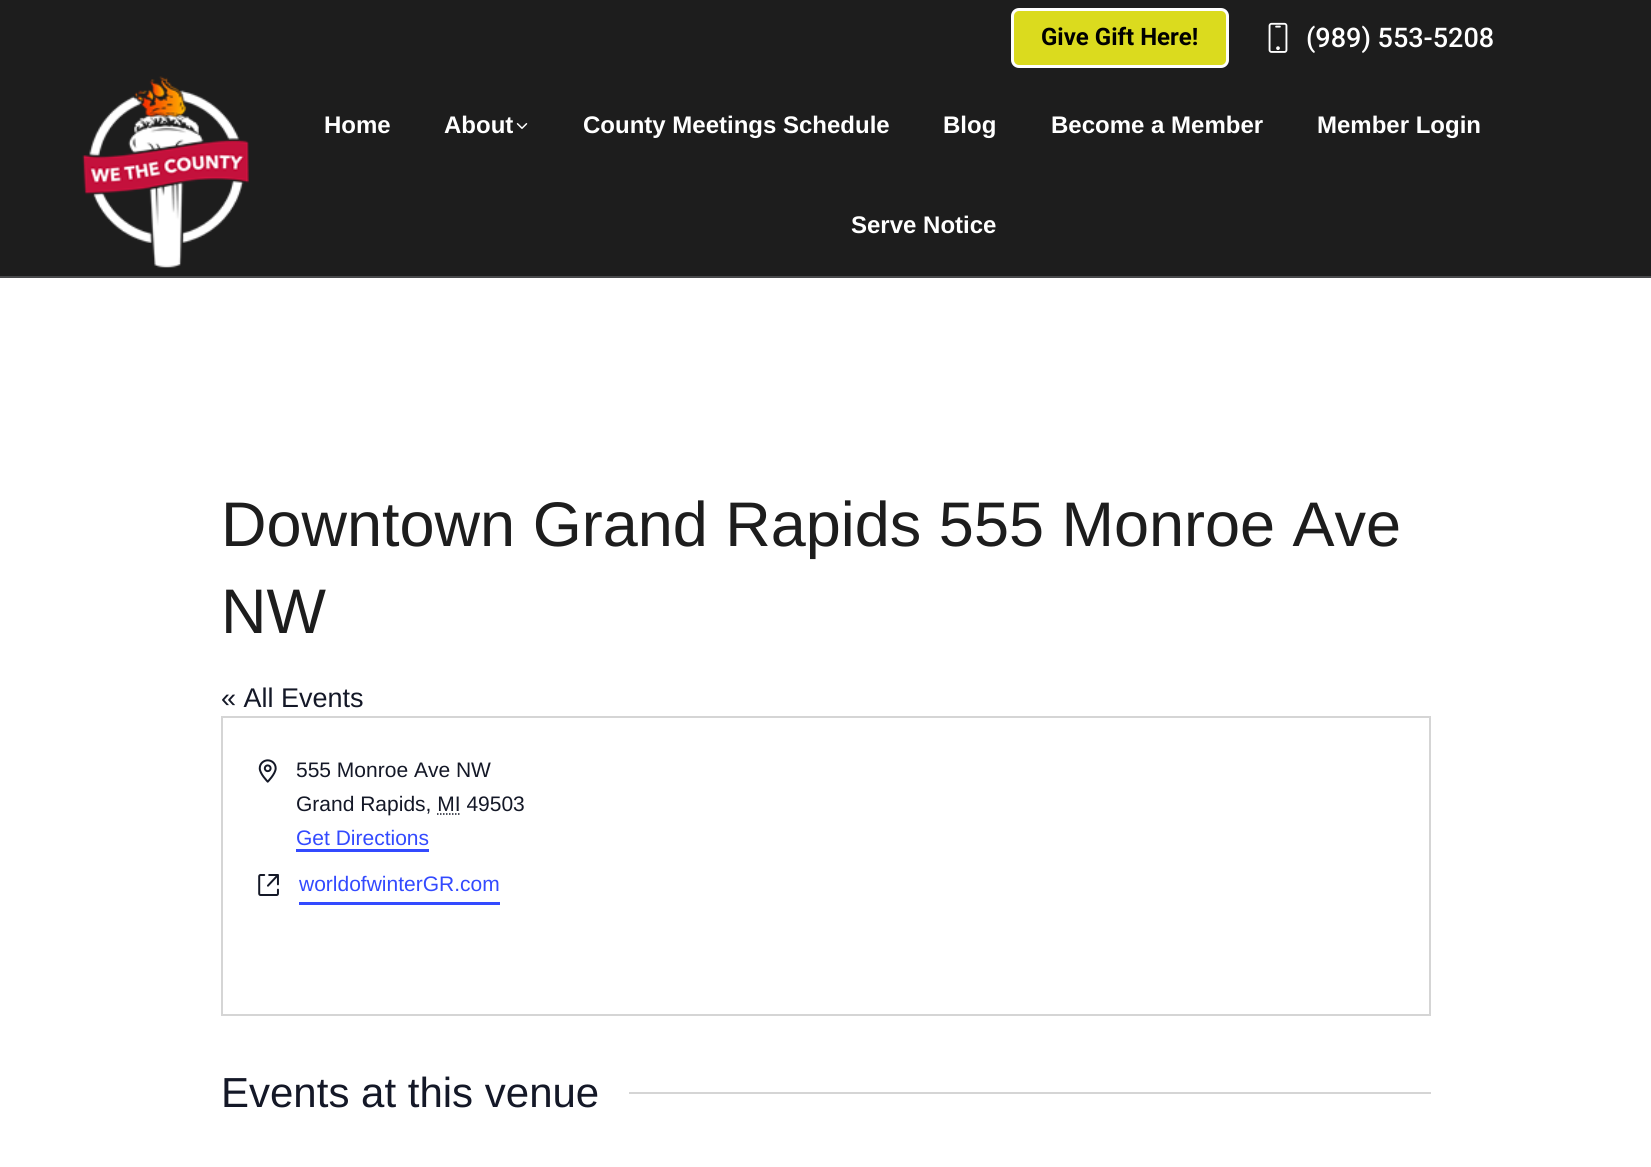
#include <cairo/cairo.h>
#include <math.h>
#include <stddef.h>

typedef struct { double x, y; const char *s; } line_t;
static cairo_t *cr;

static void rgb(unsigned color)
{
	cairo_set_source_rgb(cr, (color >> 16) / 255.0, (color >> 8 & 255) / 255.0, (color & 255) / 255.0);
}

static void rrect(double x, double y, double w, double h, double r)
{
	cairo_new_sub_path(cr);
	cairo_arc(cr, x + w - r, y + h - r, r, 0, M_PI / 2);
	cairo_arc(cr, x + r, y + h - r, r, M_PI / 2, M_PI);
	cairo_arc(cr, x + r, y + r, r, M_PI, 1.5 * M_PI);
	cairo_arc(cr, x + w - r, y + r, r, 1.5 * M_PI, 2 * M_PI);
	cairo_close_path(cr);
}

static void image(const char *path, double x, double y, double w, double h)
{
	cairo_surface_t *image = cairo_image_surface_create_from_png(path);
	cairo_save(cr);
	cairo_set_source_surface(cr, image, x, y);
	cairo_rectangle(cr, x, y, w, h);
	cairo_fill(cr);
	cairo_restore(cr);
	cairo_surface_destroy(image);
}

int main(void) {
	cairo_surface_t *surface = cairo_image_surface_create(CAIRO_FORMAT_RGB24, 1651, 1167);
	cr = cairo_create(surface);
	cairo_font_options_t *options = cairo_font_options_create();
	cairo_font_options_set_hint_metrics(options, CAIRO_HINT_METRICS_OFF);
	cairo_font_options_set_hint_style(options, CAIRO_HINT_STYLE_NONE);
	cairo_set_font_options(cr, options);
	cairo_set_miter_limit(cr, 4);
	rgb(0xffffff);
	cairo_paint(cr);
	rgb(0x1d1d1d);
	cairo_rectangle(cr, 0, 0, 1651, 276);
	cairo_fill(cr);
	rgb(0x48494b);
	cairo_rectangle(cr, 0, 276, 1651, 2);
	cairo_fill(cr);
	rgb(0xdbdb1e);
	rrect(1012.5, 9.5, 215, 57, 6.5);
	cairo_fill_preserve(cr);
	rgb(0xffffff);
	cairo_set_line_width(cr, 3);
	cairo_stroke(cr);
	image("img/1.png", 1268, 22, 20, 31);
	image("img/2.png", 82, 76, 167, 192);
	image("img/3.png", 516, 123, 12, 6);
	cairo_rectangle(cr, 222, 717, 1208, 298);
	rgb(0xd5d5d5);
	cairo_set_line_width(cr, 2);
	cairo_stroke(cr);
	image("img/4.png", 258, 759, 19, 24);
	cairo_new_path(cr);
	cairo_move_to(cr, 437, 814);
	cairo_line_to(cr, 460, 814);
	rgb(0x141827);
	cairo_set_line_width(cr, 1.5);
	cairo_set_dash(cr, (double[]){1.5, 1.5}, 2, 0);
	cairo_stroke(cr);
	rgb(0x334aff);
	cairo_rectangle(cr, 296, 849, 133, 3);
	cairo_fill(cr);
	image("img/5.png", 258, 874, 21, 22);
	cairo_rectangle(cr, 299, 902, 201, 3);
	cairo_fill(cr);
	rgb(0xd5d5d5);
	cairo_rectangle(cr, 629, 1092, 802, 2);
	cairo_fill(cr);
	cairo_select_font_face(cr, "Roboto", CAIRO_FONT_SLANT_NORMAL, CAIRO_FONT_WEIGHT_BOLD);
	cairo_set_font_size(cr, 24);
	rgb(0x000000);
	cairo_move_to(cr, 1041, 45);
	cairo_show_text(cr, "Give Gift Here!");
	cairo_select_font_face(cr, "Roboto Medium", CAIRO_FONT_SLANT_NORMAL, CAIRO_FONT_WEIGHT_NORMAL);
	cairo_set_font_size(cr, 27);
	rgb(0xffffff);
	cairo_move_to(cr, 1306, 47);
	cairo_show_text(cr, "(989) 553-5208");
	cairo_select_font_face(cr, "Liberation Sans", CAIRO_FONT_SLANT_NORMAL, CAIRO_FONT_WEIGHT_BOLD);
	cairo_set_font_size(cr, 24);
	{
		static const line_t items[] = {
			{324, 133, "Home"},
			{444, 133, "About"},
			{583, 133, "County Meetings Schedule"},
			{943, 133, "Blog"},
			{1051, 133, "Become a Member"},
			{1317, 133, "Member Login"},
			{851, 233, "Serve Notice"},
		};
		for (size_t i = 0; i < sizeof items / sizeof *items; i++) {
			cairo_move_to(cr, items[i].x, items[i].y);
			cairo_show_text(cr, items[i].s);
		}
	}
	cairo_select_font_face(cr, "Liberation Sans", CAIRO_FONT_SLANT_NORMAL, CAIRO_FONT_WEIGHT_NORMAL);
	cairo_set_font_size(cr, 63);
	rgb(0x1d1d1d);
	cairo_move_to(cr, 221, 546);
	cairo_show_text(cr, "Downtown Grand Rapids 555 Monroe Ave");
	cairo_move_to(cr, 221, 633);
	cairo_show_text(cr, "NW");
	cairo_set_font_size(cr, 27);
	rgb(0x141827);
	cairo_move_to(cr, 221, 707);
	cairo_show_text(cr, "« All Events");
	cairo_set_font_size(cr, 21);
	cairo_move_to(cr, 296, 777);
	cairo_show_text(cr, "555 Monroe Ave NW");
	cairo_move_to(cr, 296, 811);
	cairo_show_text(cr, "Grand Rapids, MI 49503");
	rgb(0x334aff);
	cairo_move_to(cr, 296, 845);
	cairo_show_text(cr, "Get Directions");
	cairo_move_to(cr, 299, 891);
	cairo_show_text(cr, "worldofwinterGR.com");
	cairo_set_font_size(cr, 42);
	rgb(0x141827);
	cairo_move_to(cr, 221, 1107);
	cairo_show_text(cr, "Events at this venue");
	cairo_surface_write_to_png(surface, "page.png");
	cairo_font_options_destroy(options);
	cairo_destroy(cr);
	cairo_surface_destroy(surface);
	return 0;
}
